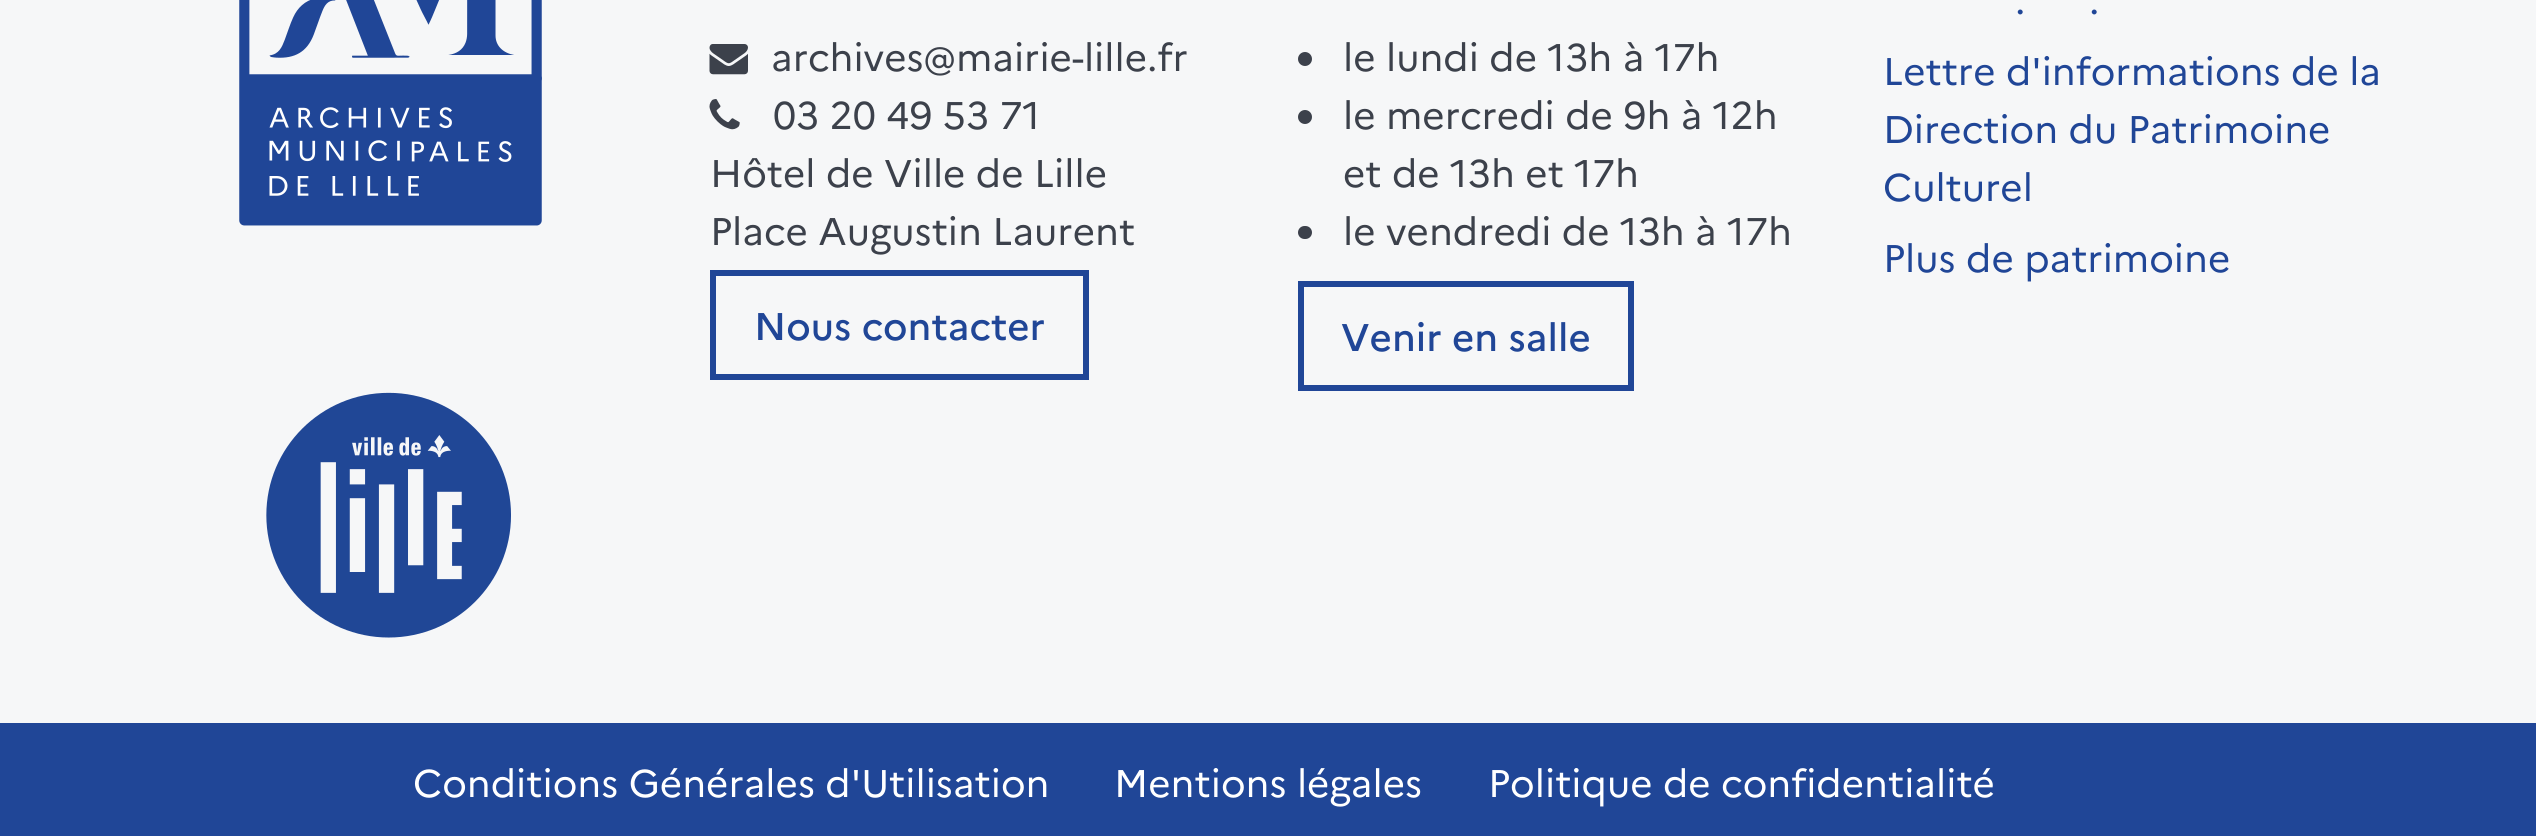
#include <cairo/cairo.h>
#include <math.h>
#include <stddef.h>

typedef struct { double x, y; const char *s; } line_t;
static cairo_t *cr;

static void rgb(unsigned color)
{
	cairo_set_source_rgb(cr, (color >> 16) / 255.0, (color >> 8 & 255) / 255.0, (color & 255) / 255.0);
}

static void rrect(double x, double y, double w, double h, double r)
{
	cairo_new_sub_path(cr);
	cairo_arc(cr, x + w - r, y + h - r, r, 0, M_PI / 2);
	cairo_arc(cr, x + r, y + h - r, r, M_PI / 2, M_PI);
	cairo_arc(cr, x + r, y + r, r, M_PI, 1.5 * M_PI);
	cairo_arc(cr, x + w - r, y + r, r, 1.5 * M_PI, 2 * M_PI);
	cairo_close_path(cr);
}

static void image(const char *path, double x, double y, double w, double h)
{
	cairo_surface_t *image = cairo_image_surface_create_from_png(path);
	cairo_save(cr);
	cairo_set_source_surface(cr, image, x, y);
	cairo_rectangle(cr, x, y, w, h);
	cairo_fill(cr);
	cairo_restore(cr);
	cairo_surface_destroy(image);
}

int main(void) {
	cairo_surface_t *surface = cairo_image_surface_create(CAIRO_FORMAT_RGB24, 2536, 836);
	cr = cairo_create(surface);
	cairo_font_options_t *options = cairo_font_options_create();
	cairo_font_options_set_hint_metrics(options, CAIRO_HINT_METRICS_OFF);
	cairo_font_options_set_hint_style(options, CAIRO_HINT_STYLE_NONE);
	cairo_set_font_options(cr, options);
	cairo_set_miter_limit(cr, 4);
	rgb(0xf6f7f8);
	cairo_paint(cr);
	image("img/1.png", 239, 0, 303, 226);
	image("img/2.png", 709, 44, 39, 31);
	image("img/3.png", 709, 99, 31, 31);
	cairo_rectangle(cr, 713, 273, 373, 104);
	rgb(0x204697);
	cairo_set_line_width(cr, 6);
	cairo_stroke(cr);
	rgb(0x3c414b);
	cairo_arc(cr, 1305, 59, 7, 0, 2 * M_PI);
	cairo_fill(cr);
	cairo_arc(cr, 1305, 117, 7, 0, 2 * M_PI);
	cairo_fill(cr);
	rrect(1298, 226, 14, 13, 6.5);
	cairo_fill(cr);
	cairo_rectangle(cr, 1301, 284, 330, 104);
	rgb(0x204697);
	cairo_stroke(cr);
	image("img/4.png", 266, 392, 245, 246);
	cairo_rectangle(cr, 0, 723, 2536, 113);
	cairo_fill(cr);
	cairo_select_font_face(cr, "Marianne", CAIRO_FONT_SLANT_NORMAL, CAIRO_FONT_WEIGHT_NORMAL);
	cairo_set_font_size(cr, 38.5);
	rgb(0x3c414b);
	{
		static const line_t items[] = {
			{771, 71, "archives@mairie-lille.fr"},
			{773, 129, "03 20 49 53 71"},
			{710, 187, "Hôtel de Ville de Lille"},
			{710, 245, "Place Augustin Laurent"},
		};
		for (size_t i = 0; i < sizeof items / sizeof *items; i++) {
			cairo_move_to(cr, items[i].x, items[i].y);
			cairo_show_text(cr, items[i].s);
		}
	}
	cairo_select_font_face(cr, "Marianne Medium", CAIRO_FONT_SLANT_NORMAL, CAIRO_FONT_WEIGHT_NORMAL);
	rgb(0x204697);
	cairo_move_to(cr, 754, 340);
	cairo_show_text(cr, "Nous contacter");
	cairo_select_font_face(cr, "Marianne", CAIRO_FONT_SLANT_NORMAL, CAIRO_FONT_WEIGHT_NORMAL);
	rgb(0x3c414b);
	{
		static const line_t items[] = {
			{1343, 71, "le lundi de 13h à 17h"},
			{1343, 129, "le mercredi de 9h à 12h"},
			{1343, 187, "et de 13h et 17h"},
			{1343, 245, "le vendredi de 13h à 17h"},
		};
		for (size_t i = 0; i < sizeof items / sizeof *items; i++) {
			cairo_move_to(cr, items[i].x, items[i].y);
			cairo_show_text(cr, items[i].s);
		}
	}
	cairo_select_font_face(cr, "Marianne Medium", CAIRO_FONT_SLANT_NORMAL, CAIRO_FONT_WEIGHT_NORMAL);
	rgb(0x204697);
	cairo_move_to(cr, 1341, 351);
	cairo_show_text(cr, "Venir en salle");
	cairo_select_font_face(cr, "Marianne", CAIRO_FONT_SLANT_NORMAL, CAIRO_FONT_WEIGHT_NORMAL);
	{
		static const line_t items[] = {
			{2015, 14, "."},
			{2089, 14, "."},
			{1883, 85, "Lettre d'informations de la"},
			{1883, 143, "Direction du Patrimoine"},
			{1883, 201, "Culturel"},
			{1883, 272, "Plus de patrimoine"},
		};
		for (size_t i = 0; i < sizeof items / sizeof *items; i++) {
			cairo_move_to(cr, items[i].x, items[i].y);
			cairo_show_text(cr, items[i].s);
		}
	}
	rgb(0xffffff);
	{
		static const line_t items[] = {
			{413, 797, "Conditions Générales d'Utilisation"},
			{1114, 797, "Mentions légales"},
			{1488, 797, "Politique de confidentialité"},
		};
		for (size_t i = 0; i < sizeof items / sizeof *items; i++) {
			cairo_move_to(cr, items[i].x, items[i].y);
			cairo_show_text(cr, items[i].s);
		}
	}
	cairo_surface_write_to_png(surface, "page.png");
	cairo_font_options_destroy(options);
	cairo_destroy(cr);
	cairo_surface_destroy(surface);
	return 0;
}
